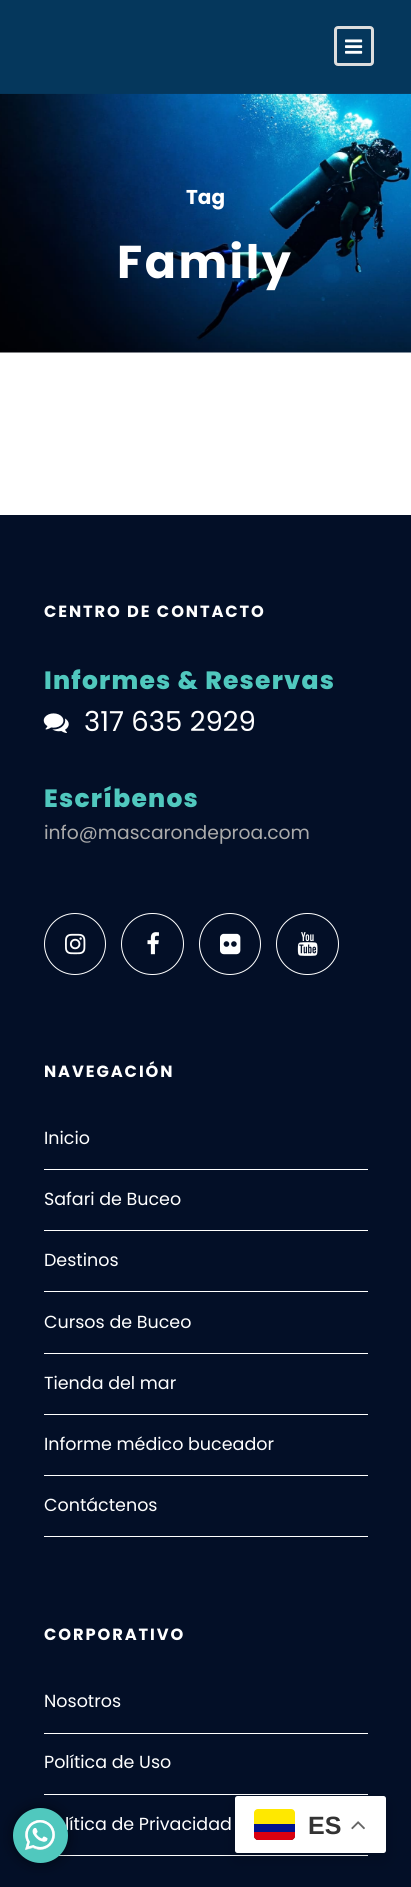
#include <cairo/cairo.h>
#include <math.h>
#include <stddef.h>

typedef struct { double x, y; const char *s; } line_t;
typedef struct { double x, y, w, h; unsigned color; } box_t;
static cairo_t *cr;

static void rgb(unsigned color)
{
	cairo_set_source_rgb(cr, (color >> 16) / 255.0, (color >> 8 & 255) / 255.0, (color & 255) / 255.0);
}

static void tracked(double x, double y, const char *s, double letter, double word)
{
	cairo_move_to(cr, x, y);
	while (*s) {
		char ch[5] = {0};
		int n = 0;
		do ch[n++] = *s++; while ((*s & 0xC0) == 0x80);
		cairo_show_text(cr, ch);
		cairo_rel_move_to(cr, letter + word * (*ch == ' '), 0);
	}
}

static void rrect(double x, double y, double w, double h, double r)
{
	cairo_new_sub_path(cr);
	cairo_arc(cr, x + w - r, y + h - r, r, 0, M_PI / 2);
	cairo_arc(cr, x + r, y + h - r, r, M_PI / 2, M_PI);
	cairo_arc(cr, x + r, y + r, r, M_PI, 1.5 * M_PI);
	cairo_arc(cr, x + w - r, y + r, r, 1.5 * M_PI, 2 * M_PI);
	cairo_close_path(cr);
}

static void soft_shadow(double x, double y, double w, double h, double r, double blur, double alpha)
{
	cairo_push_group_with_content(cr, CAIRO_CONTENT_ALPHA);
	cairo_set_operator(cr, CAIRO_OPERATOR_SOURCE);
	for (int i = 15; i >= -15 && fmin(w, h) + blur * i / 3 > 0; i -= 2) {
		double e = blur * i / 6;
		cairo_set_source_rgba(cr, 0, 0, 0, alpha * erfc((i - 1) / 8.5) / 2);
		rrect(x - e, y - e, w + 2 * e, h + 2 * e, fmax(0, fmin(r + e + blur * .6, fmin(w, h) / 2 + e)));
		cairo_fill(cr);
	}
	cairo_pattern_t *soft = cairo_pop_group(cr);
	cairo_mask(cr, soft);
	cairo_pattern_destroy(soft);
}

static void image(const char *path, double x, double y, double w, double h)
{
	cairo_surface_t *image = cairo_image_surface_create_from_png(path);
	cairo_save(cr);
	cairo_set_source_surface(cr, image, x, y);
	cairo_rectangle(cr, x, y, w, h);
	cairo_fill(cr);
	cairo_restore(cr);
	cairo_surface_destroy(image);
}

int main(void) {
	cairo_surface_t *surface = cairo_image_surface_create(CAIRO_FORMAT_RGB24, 411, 1887);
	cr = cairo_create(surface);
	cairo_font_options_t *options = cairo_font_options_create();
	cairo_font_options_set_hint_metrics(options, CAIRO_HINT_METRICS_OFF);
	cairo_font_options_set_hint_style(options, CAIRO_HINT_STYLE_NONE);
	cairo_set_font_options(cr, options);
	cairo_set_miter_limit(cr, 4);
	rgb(0x05375c);
	cairo_paint(cr);
	rrect(335.5, 27.5, 37, 37, 2.5);
	rgb(0xdddddd);
	cairo_set_line_width(cr, 3);
	cairo_stroke(cr);
	image("img/1.png", 345, 39, 18, 15);
	rgb(0xffffff);
	cairo_rectangle(cr, 0, 352, 411, 163);
	cairo_fill(cr);
	image("img/2.png", 0, 93, 411, 260);
	rgb(0x030f27);
	cairo_rectangle(cr, 0, 515, 411, 1372);
	cairo_fill(cr);
	image("img/3.png", 43, 713, 26, 20);
	cairo_arc(cr, 75, 944, 30.5, 0, 2 * M_PI);
	rgb(0xffffff);
	cairo_set_line_width(cr, 1);
	cairo_stroke(cr);
	image("img/4.png", 65, 933, 21, 22);
	rrect(121.5, 913.5, 62, 61, 30.5);
	cairo_stroke(cr);
	image("img/5.png", 147, 932, 12, 23);
	cairo_arc(cr, 230, 944, 30.5, 0, 2 * M_PI);
	cairo_stroke(cr);
	image("img/6.png", 220, 933, 21, 22);
	rrect(276.5, 913.5, 62, 61, 30.5);
	cairo_stroke(cr);
	image("img/7.png", 297, 932, 21, 24);
	{
		static const box_t items[] = {
			{44, 1169, 324, 1, 0xffffff},
			{44, 1230, 324, 1, 0xffffff},
			{44, 1291, 324, 1, 0xffffff},
			{44, 1353, 324, 1, 0xffffff},
			{44, 1414, 324, 1, 0xffffff},
			{44, 1475, 324, 1, 0xffffff},
			{44, 1536, 324, 1, 0xffffff},
			{44, 1733, 324, 1, 0xffffff},
			{44, 1794, 324, 1, 0xffffff},
			{58, 1855, 310, 1, 0xffffff},
		};
		for (size_t i = 0; i < sizeof items / sizeof *items; i++) {
			rgb(items[i].color);
			cairo_rectangle(cr, items[i].x, items[i].y, items[i].w, items[i].h);
			cairo_fill(cr);
		}
	}
	rgb(0x000000);
	soft_shadow(13, 1808, 55, 55, 27.5, 7, 0.5);
	soft_shadow(235, 1803, 151, 56, 2.5, 9.5, 0.15);
	rgb(0xffffff);
	rrect(235, 1796, 151, 57, 2.5);
	cairo_fill(cr);
	rgb(0xffe800);
	rrect(254, 1809, 41, 31, 4);
	cairo_fill(cr);
	rgb(0x00148e);
	cairo_new_path(cr);
	cairo_move_to(cr, 254, 1824);
	cairo_line_to(cr, 295, 1824);
	cairo_line_to(cr, 295, 1836);
	cairo_curve_to(cr, 295, 1838, 293, 1840, 291, 1840);
	cairo_line_to(cr, 258, 1840);
	cairo_curve_to(cr, 256, 1840, 254, 1838, 254, 1836);
	cairo_close_path(cr);
	cairo_fill(cr);
	rgb(0xda0010);
	cairo_new_path(cr);
	cairo_move_to(cr, 254, 1832);
	cairo_line_to(cr, 295, 1832);
	cairo_line_to(cr, 295, 1836);
	cairo_curve_to(cr, 295, 1838, 293, 1840, 291, 1840);
	cairo_line_to(cr, 258, 1840);
	cairo_curve_to(cr, 256, 1840, 254, 1838, 254, 1836);
	cairo_close_path(cr);
	cairo_fill(cr);
	image("img/9.png", 351, 1821, 14, 9);
	cairo_select_font_face(cr, "Poppins", CAIRO_FONT_SLANT_NORMAL, CAIRO_FONT_WEIGHT_BOLD);
	cairo_set_font_size(cr, 20);
	rgb(0xffffff);
	cairo_move_to(cr, 186, 204);
	cairo_show_text(cr, "Tag");
	cairo_set_font_size(cr, 46);
	tracked(117, 278, "Family", 2.5, 0);
	cairo_set_font_size(cr, 16.25);
	tracked(44, 617, "CENTRO DE CONTACTO", 1.9, 0);
	cairo_select_font_face(cr, "Poppins ExtraBold", CAIRO_FONT_SLANT_NORMAL, CAIRO_FONT_WEIGHT_NORMAL);
	cairo_set_font_size(cr, 25);
	rgb(0x50c8be);
	tracked(44, 689, "Informes & Reservas", 1.25, 0);
	cairo_select_font_face(cr, "Poppins", CAIRO_FONT_SLANT_NORMAL, CAIRO_FONT_WEIGHT_NORMAL);
	cairo_set_font_size(cr, 27.5);
	rgb(0xffffff);
	cairo_move_to(cr, 84, 731);
	cairo_show_text(cr, "317 635 2929");
	cairo_select_font_face(cr, "Poppins ExtraBold", CAIRO_FONT_SLANT_NORMAL, CAIRO_FONT_WEIGHT_NORMAL);
	cairo_set_font_size(cr, 25);
	rgb(0x50c8be);
	tracked(44, 807, "Escríbenos", 1.25, 0);
	cairo_select_font_face(cr, "Poppins", CAIRO_FONT_SLANT_NORMAL, CAIRO_FONT_WEIGHT_NORMAL);
	cairo_set_font_size(cr, 18.75);
	rgb(0xababab);
	cairo_move_to(cr, 44, 839);
	cairo_show_text(cr, "info@mascarondeproa.com");
	cairo_select_font_face(cr, "Poppins", CAIRO_FONT_SLANT_NORMAL, CAIRO_FONT_WEIGHT_BOLD);
	cairo_set_font_size(cr, 16.25);
	rgb(0xffffff);
	tracked(44, 1077, "NAVEGACIÓN", 1.9, 0);
	cairo_select_font_face(cr, "Poppins", CAIRO_FONT_SLANT_NORMAL, CAIRO_FONT_WEIGHT_NORMAL);
	cairo_set_font_size(cr, 17.5);
	{
		static const line_t items[] = {
			{44, 1144, "Inicio"},
			{44, 1205, "Safari de Buceo"},
			{44, 1266, "Destinos"},
			{44, 1328, "Cursos de Buceo"},
			{44, 1389, "Tienda del mar"},
			{44, 1450, "Informe médico buceador"},
			{44, 1511, "Contáctenos"},
		};
		for (size_t i = 0; i < sizeof items / sizeof *items; i++) {
			cairo_move_to(cr, items[i].x, items[i].y);
			cairo_show_text(cr, items[i].s);
		}
	}
	cairo_select_font_face(cr, "Poppins", CAIRO_FONT_SLANT_NORMAL, CAIRO_FONT_WEIGHT_BOLD);
	cairo_set_font_size(cr, 16.25);
	tracked(44, 1640, "CORPORATIVO", 1.9, 0);
	cairo_select_font_face(cr, "Poppins", CAIRO_FONT_SLANT_NORMAL, CAIRO_FONT_WEIGHT_NORMAL);
	cairo_set_font_size(cr, 17.5);
	{
		static const line_t items[] = {
			{44, 1707, "Nosotros"},
			{44, 1768, "Política de Uso"},
			{65, 1830, "lítica de Privacidad"},
		};
		for (size_t i = 0; i < sizeof items / sizeof *items; i++) {
			cairo_move_to(cr, items[i].x, items[i].y);
			cairo_show_text(cr, items[i].s);
		}
	}
	rgb(0x50c8be);
	cairo_new_path(cr);
	cairo_arc(cr, 40.5, 1835.5, 27.5, 0, 2 * M_PI);
	cairo_fill(cr);
	image("img/8.png", 25, 1820, 30, 30);
	cairo_select_font_face(cr, "Liberation Sans", CAIRO_FONT_SLANT_NORMAL, CAIRO_FONT_WEIGHT_BOLD);
	cairo_set_font_size(cr, 25);
	rgb(0x333333);
	cairo_move_to(cr, 308, 1834);
	cairo_show_text(cr, "ES");
	cairo_surface_write_to_png(surface, "page.png");
	cairo_font_options_destroy(options);
	cairo_destroy(cr);
	cairo_surface_destroy(surface);
	return 0;
}
